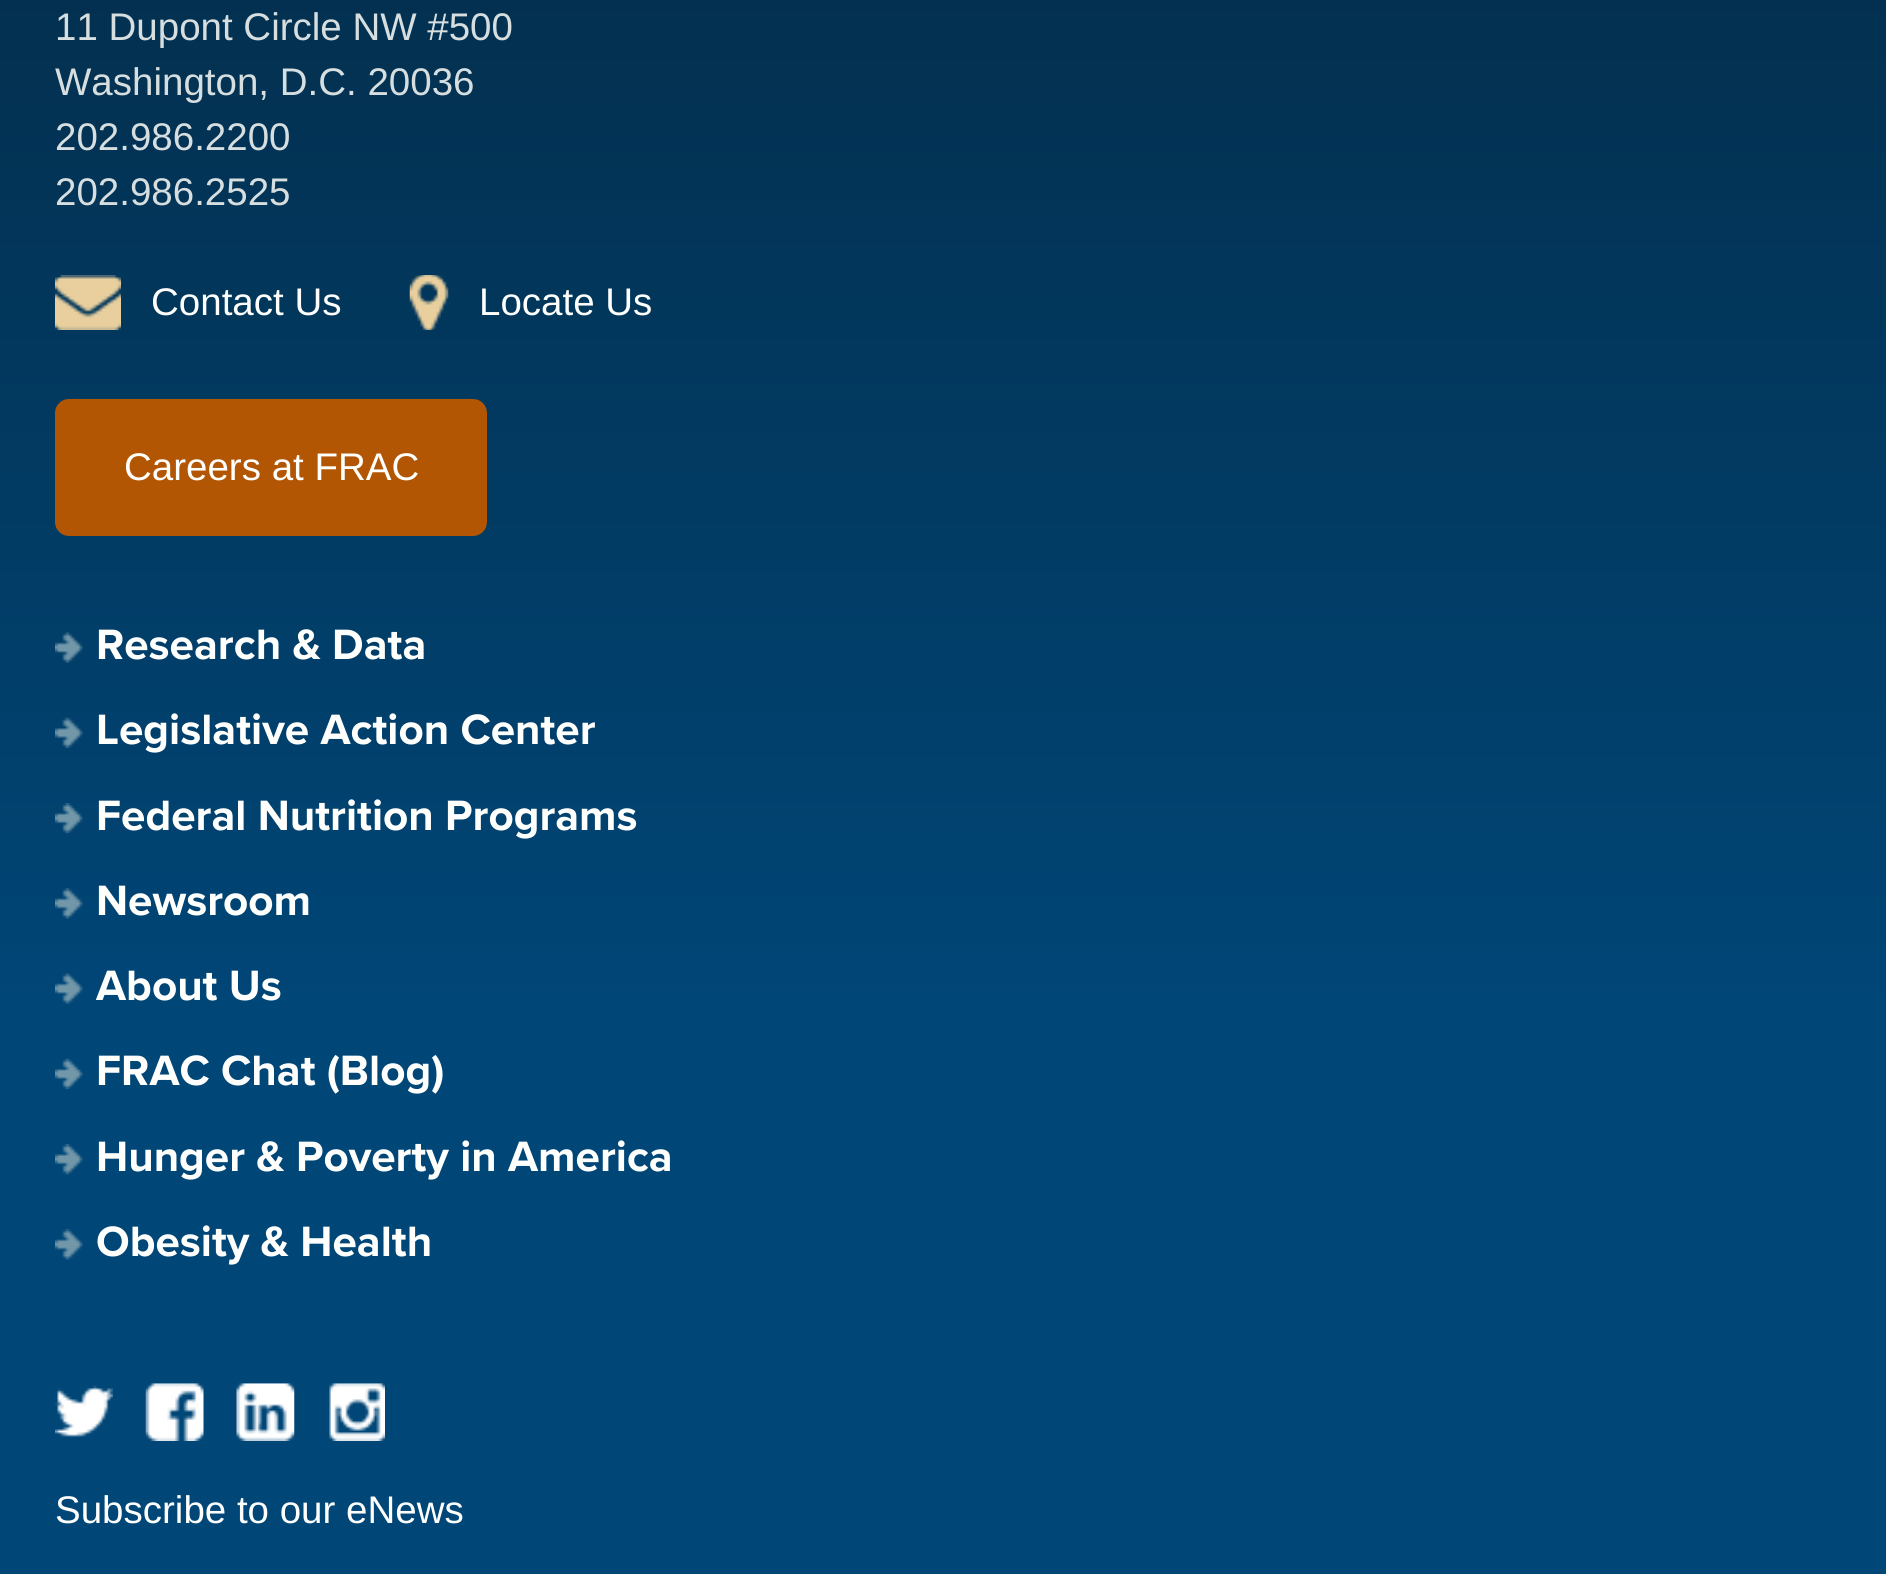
#include <cairo/cairo.h>
#include <math.h>
#include <stddef.h>

typedef struct { double x, y; const char *s; } line_t;
static cairo_t *cr;

static void rgb(unsigned color)
{
	cairo_set_source_rgb(cr, (color >> 16) / 255.0, (color >> 8 & 255) / 255.0, (color & 255) / 255.0);
}

static void rrect(double x, double y, double w, double h, double r)
{
	cairo_new_sub_path(cr);
	cairo_arc(cr, x + w - r, y + h - r, r, 0, M_PI / 2);
	cairo_arc(cr, x + r, y + h - r, r, M_PI / 2, M_PI);
	cairo_arc(cr, x + r, y + r, r, M_PI, 1.5 * M_PI);
	cairo_arc(cr, x + w - r, y + r, r, 1.5 * M_PI, 2 * M_PI);
	cairo_close_path(cr);
}

static void image(const char *path, double x, double y, double w, double h)
{
	cairo_surface_t *image = cairo_image_surface_create_from_png(path);
	cairo_save(cr);
	cairo_set_source_surface(cr, image, x, y);
	cairo_rectangle(cr, x, y, w, h);
	cairo_fill(cr);
	cairo_restore(cr);
	cairo_surface_destroy(image);
}

int main(void) {
	cairo_surface_t *surface = cairo_image_surface_create(CAIRO_FORMAT_RGB24, 1886, 1574);
	cr = cairo_create(surface);
	cairo_font_options_t *options = cairo_font_options_create();
	cairo_font_options_set_hint_metrics(options, CAIRO_HINT_METRICS_OFF);
	cairo_font_options_set_hint_style(options, CAIRO_HINT_STYLE_NONE);
	cairo_set_font_options(cr, options);
	cairo_set_miter_limit(cr, 4);
	cairo_pattern_t *gradient;
	rgb(0xffffff);
	cairo_paint(cr);
	gradient = cairo_pattern_create_linear(943, -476, 943, 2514);
	cairo_pattern_add_color_stop_rgba(gradient, 0, 0.016, 0.149, 0.243, 1);
	cairo_pattern_add_color_stop_rgba(gradient, 0.5, 0, 0.275, 0.467, 1);
	cairo_pattern_add_color_stop_rgba(gradient, 1, 0, 0.275, 0.467, 1);
	cairo_set_source(cr, gradient);
	cairo_pattern_destroy(gradient);
	cairo_rectangle(cr, 0, 0, 1886, 1574);
	cairo_fill(cr);
	image("img/1.png", 55, 275, 66, 55);
	image("img/2.png", 409, 275, 40, 55);
	rgb(0xb25603);
	rrect(55, 399, 432, 137, 14);
	cairo_fill(cr);
	image("img/3.png", 55, 632, 28, 31);
	image("img/4.png", 55, 717, 28, 31);
	image("img/5.png", 55, 803, 28, 31);
	image("img/6.png", 55, 888, 28, 31);
	image("img/7.png", 55, 973, 28, 31);
	image("img/8.png", 55, 1058, 28, 31);
	image("img/9.png", 55, 1144, 28, 31);
	image("img/10.png", 55, 1229, 28, 31);
	image("img/11.png", 55, 1385, 58, 52);
	image("img/12.png", 145, 1383, 59, 58);
	image("img/13.png", 236, 1383, 59, 58);
	image("img/14.png", 329, 1383, 56, 58);
	cairo_select_font_face(cr, "Liberation Sans", CAIRO_FONT_SLANT_NORMAL, CAIRO_FONT_WEIGHT_NORMAL);
	cairo_set_font_size(cr, 38.5);
	rgb(0xd6dedf);
	{
		static const line_t items[] = {
			{55, 40, "11 Dupont Circle NW #500"},
			{55, 95, "Washington, D.C. 20036"},
			{55, 150, "202.986.2200"},
			{55, 205, "202.986.2525"},
		};
		for (size_t i = 0; i < sizeof items / sizeof *items; i++) {
			cairo_move_to(cr, items[i].x, items[i].y);
			cairo_show_text(cr, items[i].s);
		}
	}
	rgb(0xfffffe);
	{
		static const line_t items[] = {
			{151, 315, "Contact Us"},
			{479, 315, "Locate Us"},
			{124, 480, "Careers at FRAC"},
		};
		for (size_t i = 0; i < sizeof items / sizeof *items; i++) {
			cairo_move_to(cr, items[i].x, items[i].y);
			cairo_show_text(cr, items[i].s);
		}
	}
	cairo_select_font_face(cr, "Proxima Nova", CAIRO_FONT_SLANT_NORMAL, CAIRO_FONT_WEIGHT_NORMAL);
	cairo_set_font_size(cr, 44);
	{
		static const line_t items[] = {
			{96, 659, "Research & Data"},
			{96, 744, "Legislative Action Center"},
			{96, 830, "Federal Nutrition Programs"},
			{96, 915, "Newsroom"},
			{96, 1000, "About Us"},
			{96, 1085, "FRAC Chat (Blog)"},
			{96, 1171, "Hunger & Poverty in America"},
			{96, 1256, "Obesity & Health"},
		};
		for (size_t i = 0; i < sizeof items / sizeof *items; i++) {
			cairo_move_to(cr, items[i].x, items[i].y);
			cairo_show_text(cr, items[i].s);
		}
	}
	cairo_select_font_face(cr, "Liberation Sans", CAIRO_FONT_SLANT_NORMAL, CAIRO_FONT_WEIGHT_NORMAL);
	cairo_set_font_size(cr, 38.5);
	cairo_move_to(cr, 55, 1523);
	cairo_show_text(cr, "Subscribe to our eNews");
	cairo_surface_write_to_png(surface, "page.png");
	cairo_font_options_destroy(options);
	cairo_destroy(cr);
	cairo_surface_destroy(surface);
	return 0;
}
